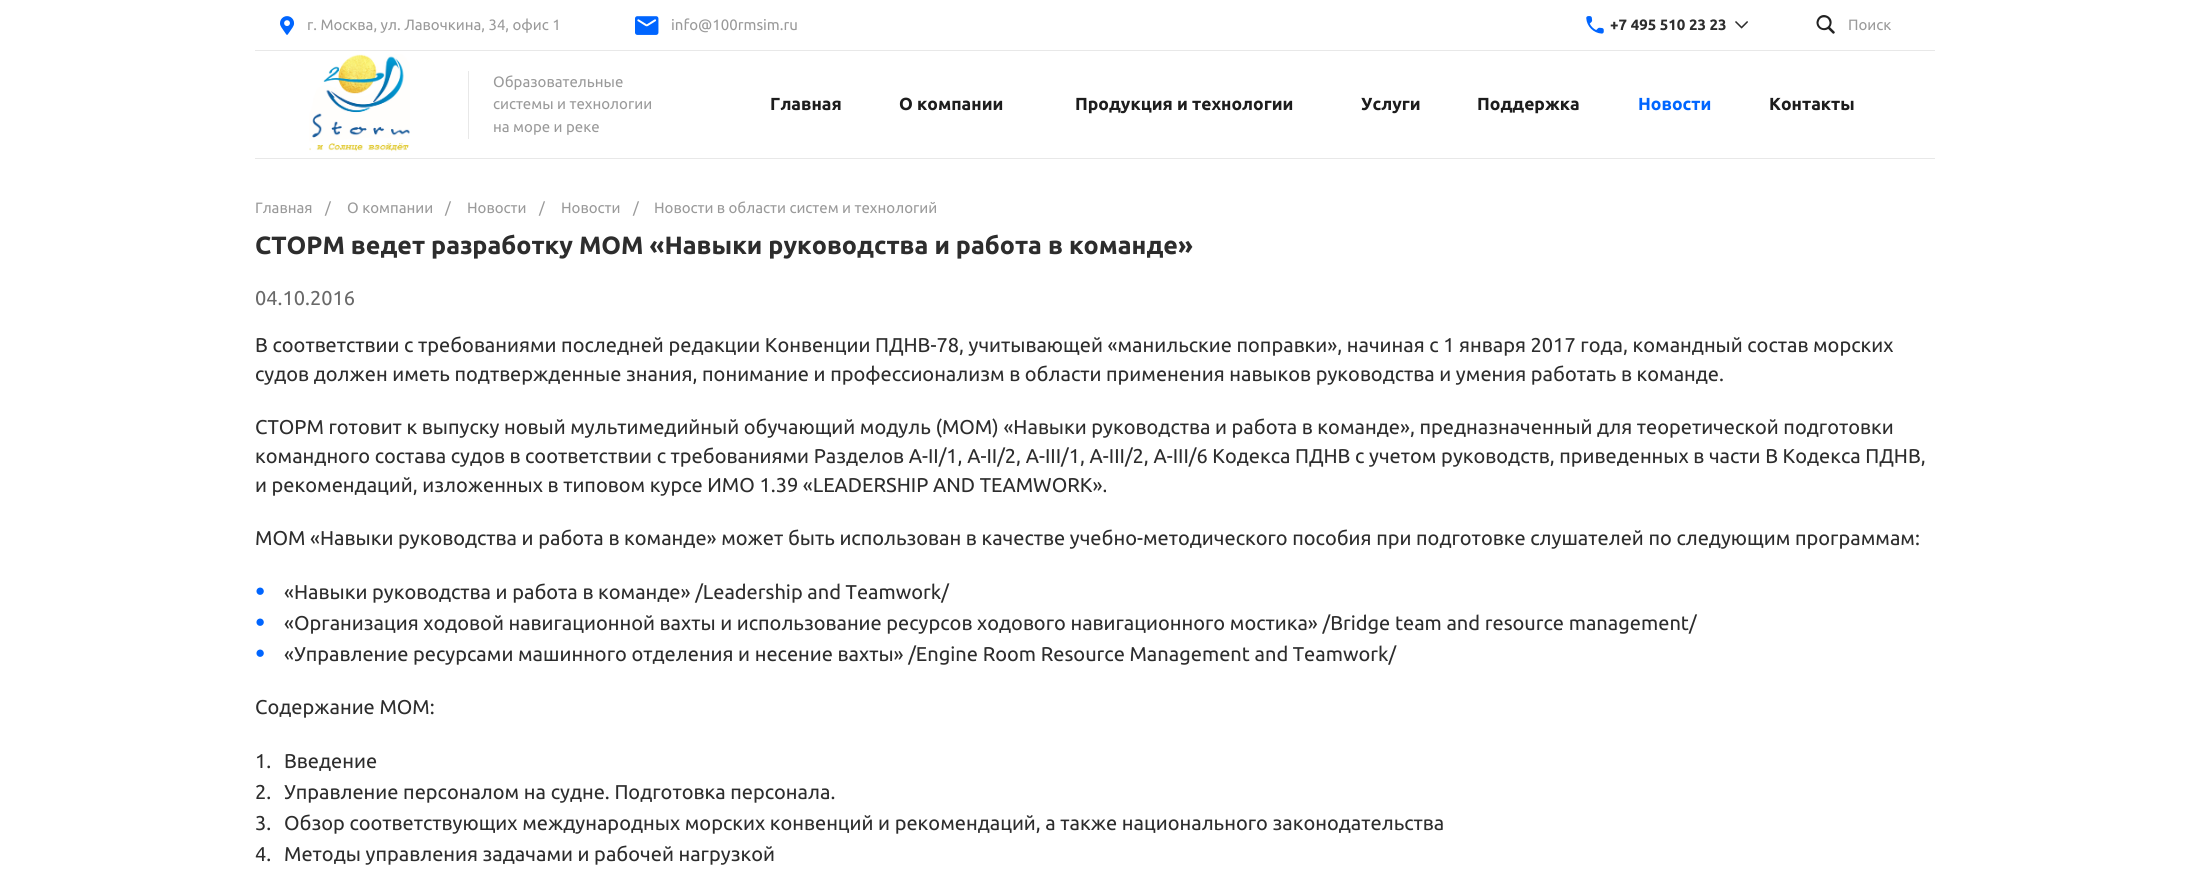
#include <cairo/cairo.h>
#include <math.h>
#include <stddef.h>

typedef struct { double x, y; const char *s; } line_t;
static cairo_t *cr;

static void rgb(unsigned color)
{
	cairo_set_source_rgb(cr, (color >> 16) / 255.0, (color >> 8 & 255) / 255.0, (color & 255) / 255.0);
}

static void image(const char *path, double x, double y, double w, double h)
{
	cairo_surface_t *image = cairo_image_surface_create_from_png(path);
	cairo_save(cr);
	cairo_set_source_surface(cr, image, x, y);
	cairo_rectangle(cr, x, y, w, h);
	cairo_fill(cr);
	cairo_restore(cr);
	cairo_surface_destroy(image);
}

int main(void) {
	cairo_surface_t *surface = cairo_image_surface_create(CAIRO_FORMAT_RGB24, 2190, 871);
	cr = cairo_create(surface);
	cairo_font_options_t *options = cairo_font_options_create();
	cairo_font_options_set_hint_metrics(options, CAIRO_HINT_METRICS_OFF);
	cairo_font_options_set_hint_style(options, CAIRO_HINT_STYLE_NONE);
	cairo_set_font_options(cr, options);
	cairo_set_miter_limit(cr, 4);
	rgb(0xffffff);
	cairo_paint(cr);
	rgb(0xe8e8e8);
	cairo_rectangle(cr, 255, 50, 1680, 1);
	cairo_fill(cr);
	image("img/1.png", 280, 16, 15, 19);
	image("img/2.png", 635, 16, 24, 19);
	image("img/3.png", 1586, 16, 18, 18);
	image("img/4.png", 1735, 21, 13, 8);
	image("img/5.png", 1816, 15, 19, 19);
	cairo_rectangle(cr, 255, 158, 1680, 1);
	cairo_fill(cr);
	image("img/6.png", 309, 54, 101, 98);
	cairo_rectangle(cr, 468, 71, 1, 68);
	cairo_fill(cr);
	cairo_select_font_face(cr, "Ubuntu", CAIRO_FONT_SLANT_NORMAL, CAIRO_FONT_WEIGHT_NORMAL);
	cairo_set_font_size(cr, 15);
	rgb(0x9a9a9a);
	cairo_move_to(cr, 307, 30);
	cairo_show_text(cr, "г. Москва, ул. Лавочкина, 34, офис 1");
	cairo_move_to(cr, 671, 30);
	cairo_show_text(cr, "info@100rmsim.ru");
	cairo_select_font_face(cr, "Ubuntu", CAIRO_FONT_SLANT_NORMAL, CAIRO_FONT_WEIGHT_BOLD);
	rgb(0x2d2d2d);
	cairo_move_to(cr, 1610, 30);
	cairo_show_text(cr, "+7 495 510 23 23");
	cairo_select_font_face(cr, "Ubuntu", CAIRO_FONT_SLANT_NORMAL, CAIRO_FONT_WEIGHT_NORMAL);
	rgb(0x9a9a9a);
	{
		static const line_t items[] = {
			{1848, 30, "Поиск"},
			{493, 87, "Образовательные"},
			{493, 109, "системы и технологии"},
			{493, 132, "на море и реке"},
		};
		for (size_t i = 0; i < sizeof items / sizeof *items; i++) {
			cairo_move_to(cr, items[i].x, items[i].y);
			cairo_show_text(cr, items[i].s);
		}
	}
	cairo_select_font_face(cr, "Ubuntu", CAIRO_FONT_SLANT_NORMAL, CAIRO_FONT_WEIGHT_BOLD);
	cairo_set_font_size(cr, 17.5);
	rgb(0x1d1d1d);
	{
		static const line_t items[] = {
			{770, 110, "Главная"},
			{899, 110, "О компании"},
			{1075, 110, "Продукция и технологии"},
			{1361, 110, "Услуги"},
			{1477, 110, "Поддержка"},
		};
		for (size_t i = 0; i < sizeof items / sizeof *items; i++) {
			cairo_move_to(cr, items[i].x, items[i].y);
			cairo_show_text(cr, items[i].s);
		}
	}
	rgb(0x0065ff);
	cairo_move_to(cr, 1638, 110);
	cairo_show_text(cr, "Новости");
	rgb(0x1d1d1d);
	cairo_move_to(cr, 1769, 110);
	cairo_show_text(cr, "Контакты");
	cairo_select_font_face(cr, "Ubuntu", CAIRO_FONT_SLANT_NORMAL, CAIRO_FONT_WEIGHT_NORMAL);
	cairo_set_font_size(cr, 15);
	rgb(0x9a9a9a);
	{
		static const line_t items[] = {
			{255, 213, "Главная"},
			{325, 213, "/"},
			{347, 213, "О компании"},
			{445, 213, "/"},
			{467, 213, "Новости"},
			{539, 213, "/"},
			{561, 213, "Новости"},
			{633, 213, "/"},
			{654, 213, "Новости в области систем и технологий"},
		};
		for (size_t i = 0; i < sizeof items / sizeof *items; i++) {
			cairo_move_to(cr, items[i].x, items[i].y);
			cairo_show_text(cr, items[i].s);
		}
	}
	cairo_select_font_face(cr, "Ubuntu", CAIRO_FONT_SLANT_NORMAL, CAIRO_FONT_WEIGHT_BOLD);
	cairo_set_font_size(cr, 25);
	rgb(0x2d2d2d);
	cairo_move_to(cr, 255, 254);
	cairo_show_text(cr, "СТОРМ ведет разработку МОМ «Навыки руководства и работа в команде»");
	cairo_select_font_face(cr, "Ubuntu", CAIRO_FONT_SLANT_NORMAL, CAIRO_FONT_WEIGHT_NORMAL);
	cairo_set_font_size(cr, 20);
	rgb(0x696969);
	cairo_move_to(cr, 255, 305);
	cairo_show_text(cr, "04.10.2016");
	rgb(0x2d2d2d);
	{
		static const line_t items[] = {
			{255, 352, "В соответствии с требованиями последней редакции Конвенции ПДНВ-78, учитывающей «манильские поправки», начиная с 1 января 2017 года, командный состав морских"},
			{255, 381, "судов должен иметь подтвержденные знания, понимание и профессионализм в области применения навыков руководства и умения работать в команде."},
			{255, 434, "СТОРМ готовит к выпуску новый мультимедийный обучающий модуль (МОМ) «Навыки руководства и работа в команде», предназначенный для теоретической подготовки"},
			{255, 463, "командного состава судов в соответствии с требованиями Разделов A-II/1, A-II/2, A-III/1, A-III/2, A-III/6 Кодекса ПДНВ с учетом руководств, приведенных в части B Кодекса ПДНВ,"},
			{255, 492, "и рекомендаций, изложенных в типовом курсе ИМО 1.39 «LEADERSHIP AND TEAMWORK»."},
			{255, 545, "МОМ «Навыки руководства и работа в команде» может быть использован в качестве учебно-методического пособия при подготовке слушателей по следующим программам:"},
		};
		for (size_t i = 0; i < sizeof items / sizeof *items; i++) {
			cairo_move_to(cr, items[i].x, items[i].y);
			cairo_show_text(cr, items[i].s);
		}
	}
	cairo_select_font_face(cr, "Liberation Sans", CAIRO_FONT_SLANT_NORMAL, CAIRO_FONT_WEIGHT_NORMAL);
	cairo_set_font_size(cr, 17);
	rgb(0x0065ff);
	cairo_move_to(cr, 255, 596);
	cairo_show_text(cr, "●");
	cairo_select_font_face(cr, "Ubuntu", CAIRO_FONT_SLANT_NORMAL, CAIRO_FONT_WEIGHT_NORMAL);
	cairo_set_font_size(cr, 20);
	rgb(0x2d2d2d);
	cairo_move_to(cr, 284, 599);
	cairo_show_text(cr, "«Навыки руководства и работа в команде» /Leadership and Teamwork/");
	cairo_select_font_face(cr, "Liberation Sans", CAIRO_FONT_SLANT_NORMAL, CAIRO_FONT_WEIGHT_NORMAL);
	cairo_set_font_size(cr, 17);
	rgb(0x0065ff);
	cairo_move_to(cr, 255, 627);
	cairo_show_text(cr, "●");
	cairo_select_font_face(cr, "Ubuntu", CAIRO_FONT_SLANT_NORMAL, CAIRO_FONT_WEIGHT_NORMAL);
	cairo_set_font_size(cr, 20);
	rgb(0x2d2d2d);
	cairo_move_to(cr, 284, 630);
	cairo_show_text(cr, "«Организация ходовой навигационной вахты и использование ресурсов ходового навигационного мостика» /Bridge team and resource management/");
	cairo_select_font_face(cr, "Liberation Sans", CAIRO_FONT_SLANT_NORMAL, CAIRO_FONT_WEIGHT_NORMAL);
	cairo_set_font_size(cr, 17);
	rgb(0x0065ff);
	cairo_move_to(cr, 255, 658);
	cairo_show_text(cr, "●");
	cairo_select_font_face(cr, "Ubuntu", CAIRO_FONT_SLANT_NORMAL, CAIRO_FONT_WEIGHT_NORMAL);
	cairo_set_font_size(cr, 20);
	rgb(0x2d2d2d);
	{
		static const line_t items[] = {
			{284, 661, "«Управление ресурсами машинного отделения и несение вахты» /Engine Room Resource Management and Teamwork/"},
			{255, 714, "Содержание МОМ:"},
			{255, 768, "1."},
			{284, 768, "Введение"},
			{255, 799, "2."},
			{284, 799, "Управление персоналом на судне. Подготовка персонала."},
			{255, 830, "3."},
			{284, 830, "Обзор соответствующих международных морских конвенций и рекомендаций, а также национального законодательства"},
			{255, 861, "4."},
			{284, 861, "Методы управления задачами и рабочей нагрузкой"},
		};
		for (size_t i = 0; i < sizeof items / sizeof *items; i++) {
			cairo_move_to(cr, items[i].x, items[i].y);
			cairo_show_text(cr, items[i].s);
		}
	}
	cairo_surface_write_to_png(surface, "page.png");
	cairo_font_options_destroy(options);
	cairo_destroy(cr);
	cairo_surface_destroy(surface);
	return 0;
}
